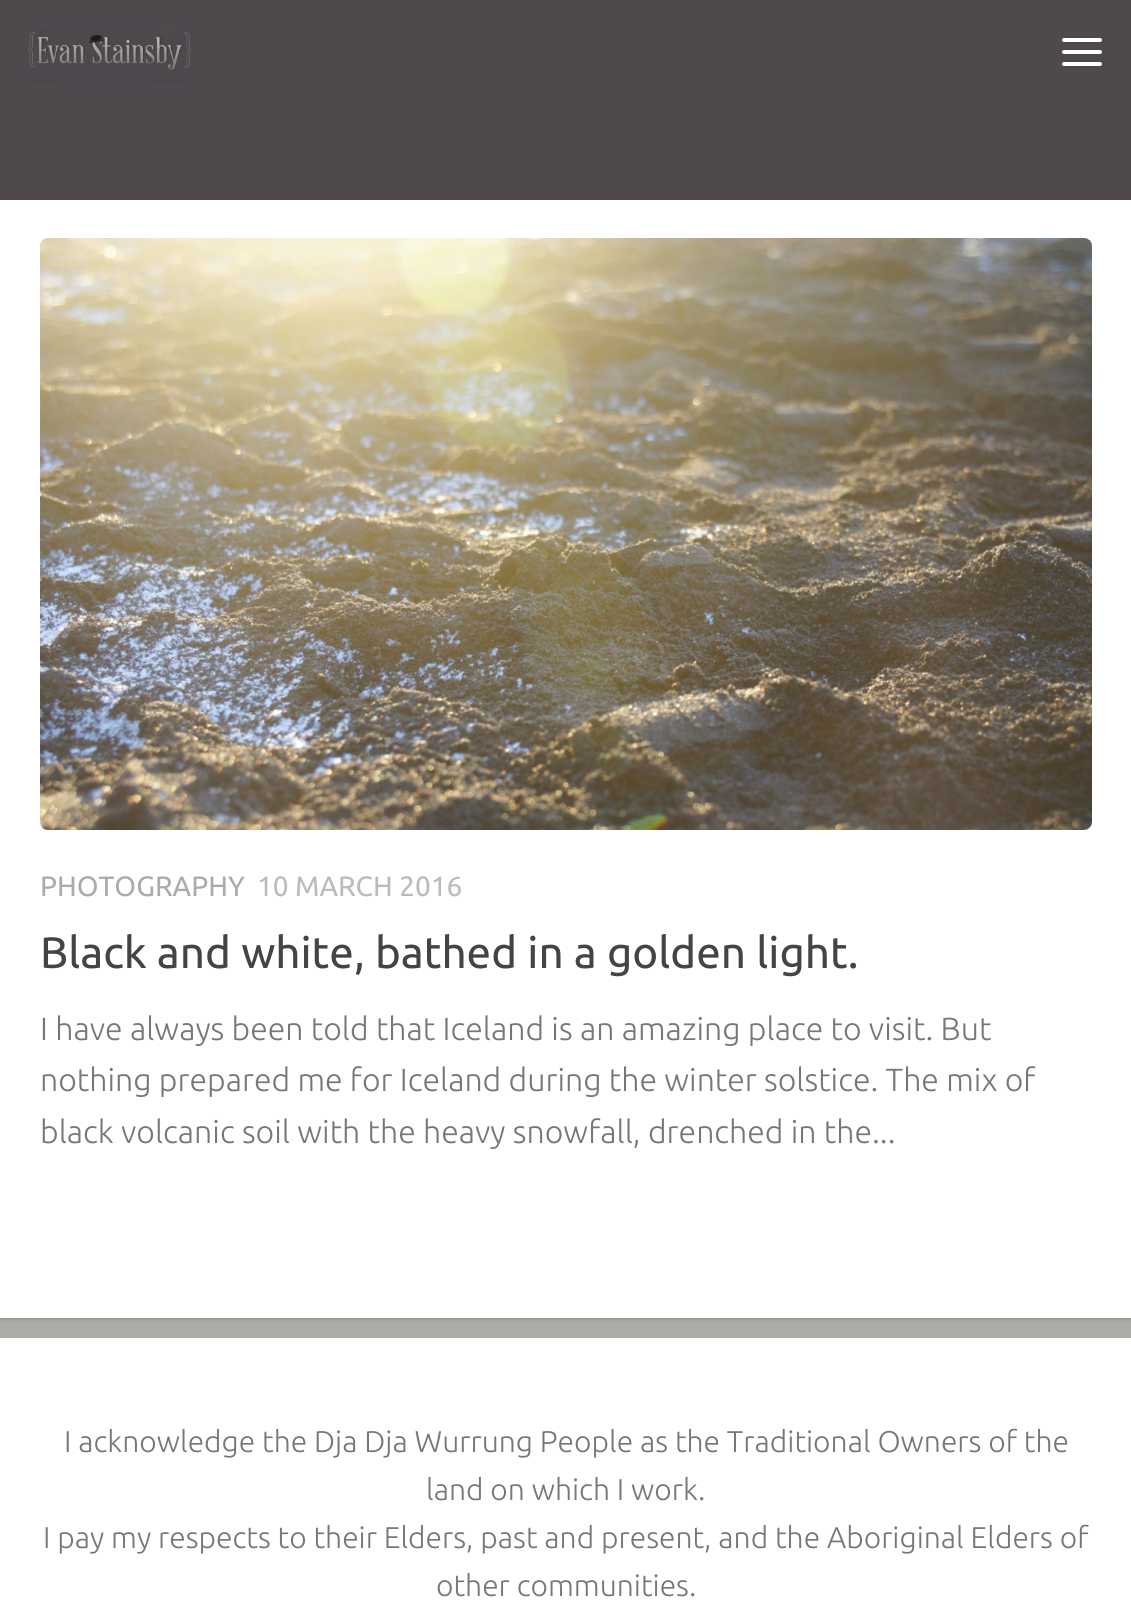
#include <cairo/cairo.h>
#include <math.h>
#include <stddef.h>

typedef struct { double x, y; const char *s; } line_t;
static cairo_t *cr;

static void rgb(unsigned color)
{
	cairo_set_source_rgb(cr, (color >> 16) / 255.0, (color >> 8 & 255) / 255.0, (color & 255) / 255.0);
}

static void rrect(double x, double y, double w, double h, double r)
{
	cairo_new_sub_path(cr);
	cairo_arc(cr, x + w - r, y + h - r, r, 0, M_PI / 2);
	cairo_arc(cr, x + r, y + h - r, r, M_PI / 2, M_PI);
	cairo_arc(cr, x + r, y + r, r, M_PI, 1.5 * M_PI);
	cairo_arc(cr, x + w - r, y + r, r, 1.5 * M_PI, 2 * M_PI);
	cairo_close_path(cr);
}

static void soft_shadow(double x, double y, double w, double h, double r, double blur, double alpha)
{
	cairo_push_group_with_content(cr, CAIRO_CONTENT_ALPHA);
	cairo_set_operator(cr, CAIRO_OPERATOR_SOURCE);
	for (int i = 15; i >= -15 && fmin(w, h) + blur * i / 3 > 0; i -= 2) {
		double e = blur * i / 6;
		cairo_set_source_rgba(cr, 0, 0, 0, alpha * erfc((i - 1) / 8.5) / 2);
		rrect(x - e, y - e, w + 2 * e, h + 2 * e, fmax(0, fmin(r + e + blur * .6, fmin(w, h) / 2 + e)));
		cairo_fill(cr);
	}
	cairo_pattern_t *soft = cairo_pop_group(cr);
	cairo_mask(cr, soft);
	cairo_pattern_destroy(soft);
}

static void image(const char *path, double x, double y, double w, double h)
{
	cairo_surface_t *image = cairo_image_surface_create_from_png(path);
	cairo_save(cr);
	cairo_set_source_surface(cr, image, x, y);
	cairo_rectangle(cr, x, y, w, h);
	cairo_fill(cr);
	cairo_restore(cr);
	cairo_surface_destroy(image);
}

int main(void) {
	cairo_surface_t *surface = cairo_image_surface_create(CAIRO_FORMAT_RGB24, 1131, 1624);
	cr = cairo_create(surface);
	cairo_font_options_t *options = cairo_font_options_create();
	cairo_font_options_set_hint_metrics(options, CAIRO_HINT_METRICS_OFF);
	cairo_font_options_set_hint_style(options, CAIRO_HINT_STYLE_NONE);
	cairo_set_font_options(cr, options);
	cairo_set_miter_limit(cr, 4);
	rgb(0xababa8);
	cairo_paint(cr);
	rgb(0x000000);
	soft_shadow(0, 102, 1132, 1218, 0, 1, 0.1);
	rgb(0x4f494e);
	cairo_rectangle(cr, 0, 0, 1131, 200);
	cairo_fill(cr);
	image("img/1.png", 28, 27, 164, 56);
	rgb(0xffffff);
	rrect(1062, 38, 40, 4, 2);
	cairo_fill(cr);
	rrect(1062, 50, 40, 4, 2);
	cairo_fill(cr);
	rrect(1062, 62, 40, 4, 2);
	cairo_fill(cr);
	cairo_rectangle(cr, 0, 200, 1131, 1118);
	cairo_fill(cr);
	image("img/2.png", 40, 238, 1052, 592);
	cairo_rectangle(cr, 0, 1338, 1131, 286);
	cairo_fill(cr);
	cairo_select_font_face(cr, "Ubuntu", CAIRO_FONT_SLANT_NORMAL, CAIRO_FONT_WEIGHT_NORMAL);
	cairo_set_font_size(cr, 28);
	rgb(0xababa8);
	cairo_move_to(cr, 40, 896);
	cairo_show_text(cr, "PHOTOGRAPHY");
	rgb(0xbbbbbb);
	cairo_move_to(cr, 257, 896);
	cairo_show_text(cr, "10 MARCH 2016");
	cairo_set_font_size(cr, 44);
	rgb(0x444444);
	cairo_move_to(cr, 40, 968);
	cairo_show_text(cr, "Black and white, bathed in a golden light.");
	cairo_select_font_face(cr, "Ubuntu Light", CAIRO_FONT_SLANT_NORMAL, CAIRO_FONT_WEIGHT_NORMAL);
	cairo_set_font_size(cr, 32);
	rgb(0x777777);
	{
		static const line_t items[] = {
			{40, 1040, "I have always been told that Iceland is an amazing place to visit. But"},
			{40, 1091, "nothing prepared me for Iceland during the winter solstice. The mix of"},
			{40, 1143, "black volcanic soil with the heavy snowfall, drenched in the..."},
		};
		for (size_t i = 0; i < sizeof items / sizeof *items; i++) {
			cairo_move_to(cr, items[i].x, items[i].y);
			cairo_show_text(cr, items[i].s);
		}
	}
	cairo_set_font_size(cr, 30);
	{
		static const line_t items[] = {
			{64, 1452, "I acknowledge the Dja Dja Wurrung People as the Traditional Owners of the"},
			{426, 1500, "land on which I work."},
			{43, 1548, "I pay my respects to their Elders, past and present, and the Aboriginal Elders of"},
			{436, 1596, "other communities."},
		};
		for (size_t i = 0; i < sizeof items / sizeof *items; i++) {
			cairo_move_to(cr, items[i].x, items[i].y);
			cairo_show_text(cr, items[i].s);
		}
	}
	cairo_surface_write_to_png(surface, "page.png");
	cairo_font_options_destroy(options);
	cairo_destroy(cr);
	cairo_surface_destroy(surface);
	return 0;
}
